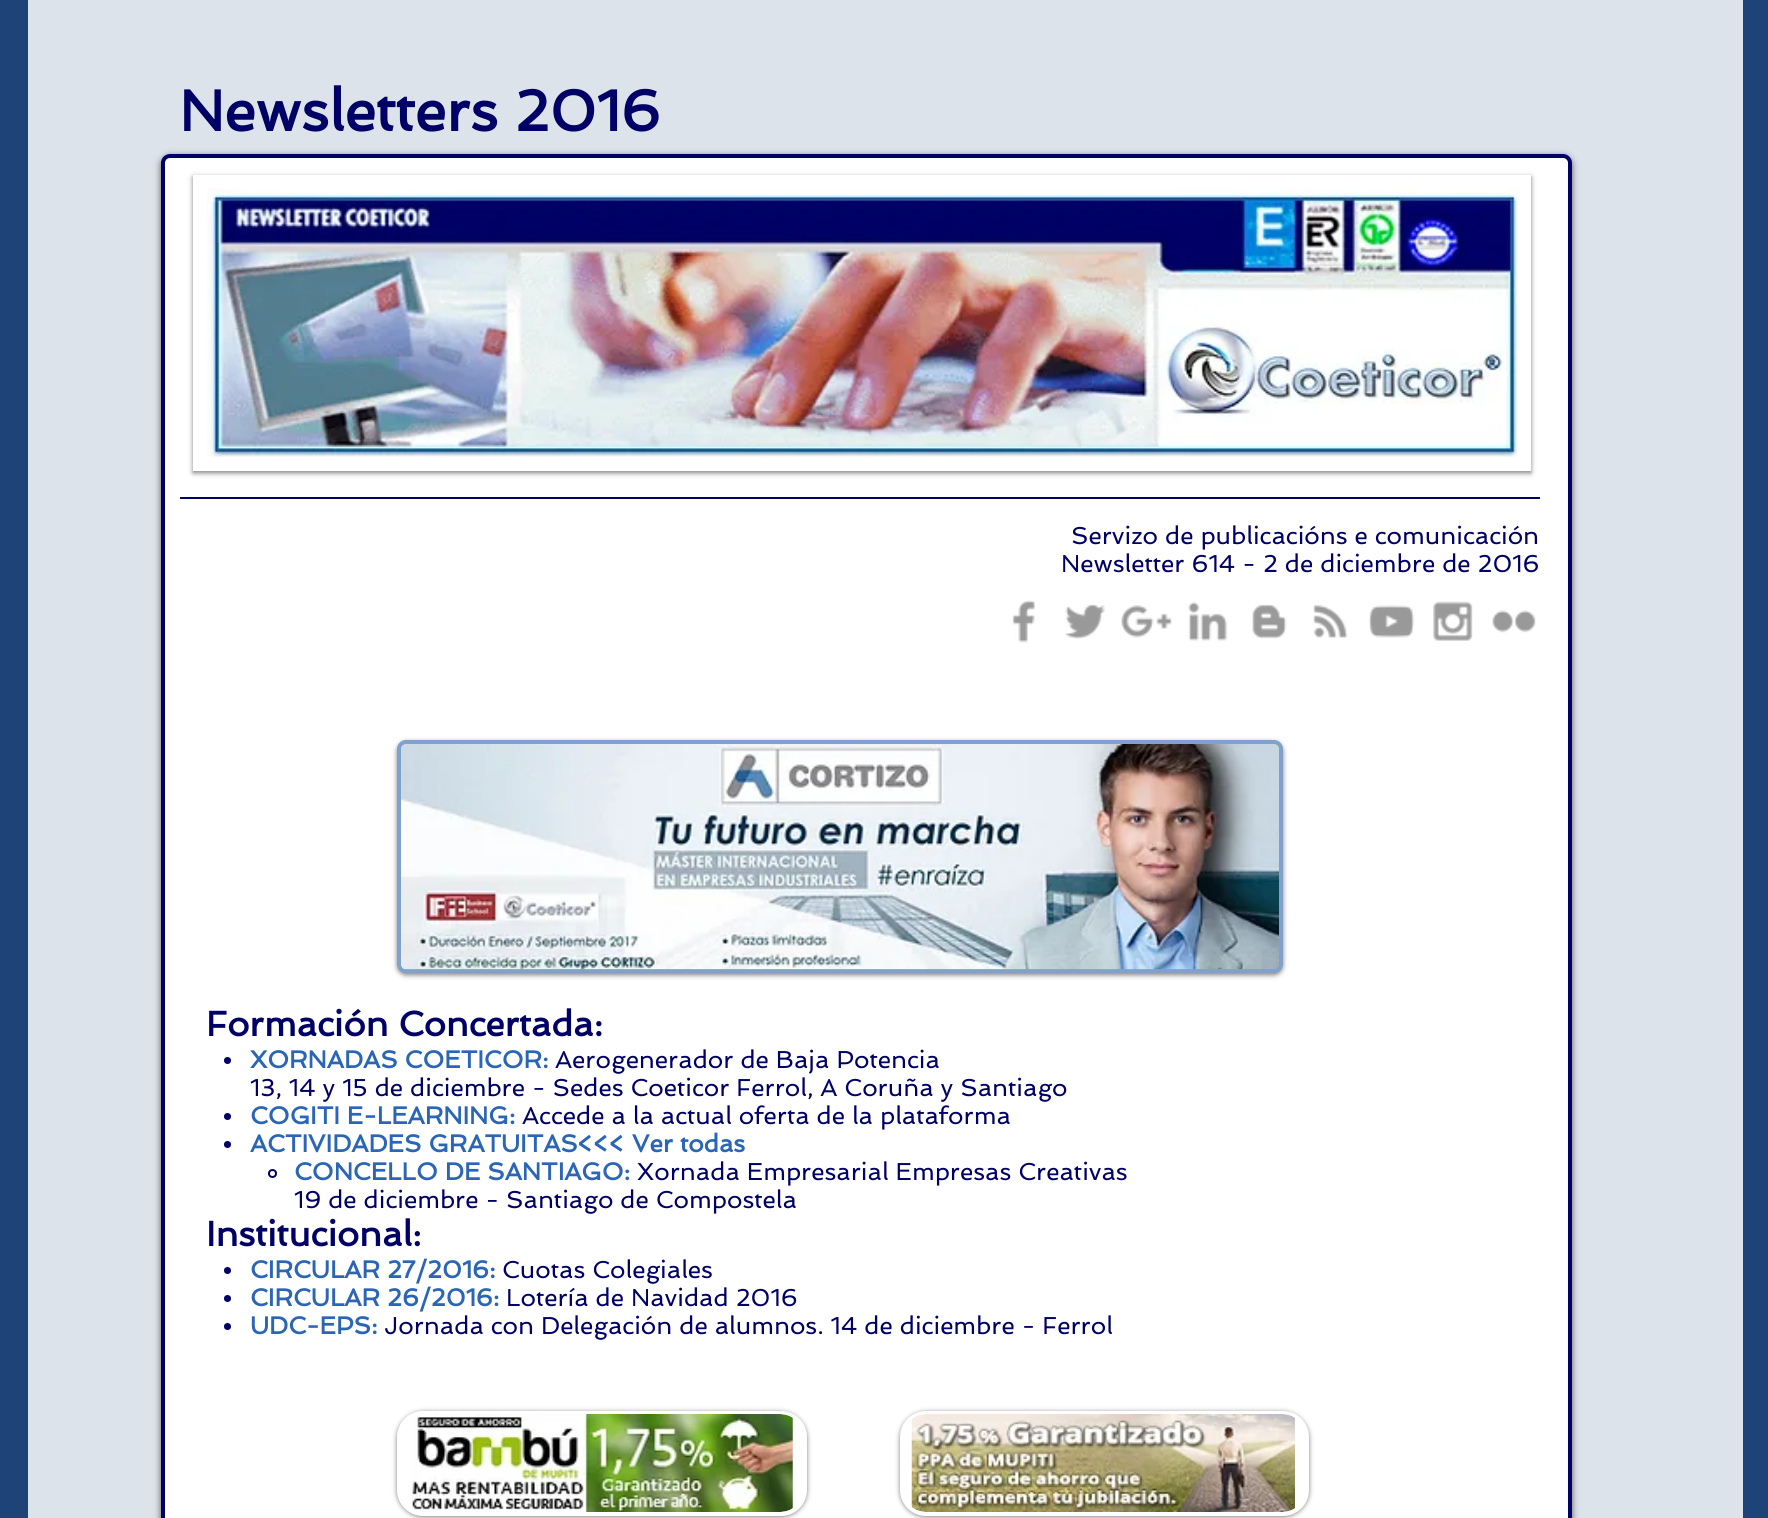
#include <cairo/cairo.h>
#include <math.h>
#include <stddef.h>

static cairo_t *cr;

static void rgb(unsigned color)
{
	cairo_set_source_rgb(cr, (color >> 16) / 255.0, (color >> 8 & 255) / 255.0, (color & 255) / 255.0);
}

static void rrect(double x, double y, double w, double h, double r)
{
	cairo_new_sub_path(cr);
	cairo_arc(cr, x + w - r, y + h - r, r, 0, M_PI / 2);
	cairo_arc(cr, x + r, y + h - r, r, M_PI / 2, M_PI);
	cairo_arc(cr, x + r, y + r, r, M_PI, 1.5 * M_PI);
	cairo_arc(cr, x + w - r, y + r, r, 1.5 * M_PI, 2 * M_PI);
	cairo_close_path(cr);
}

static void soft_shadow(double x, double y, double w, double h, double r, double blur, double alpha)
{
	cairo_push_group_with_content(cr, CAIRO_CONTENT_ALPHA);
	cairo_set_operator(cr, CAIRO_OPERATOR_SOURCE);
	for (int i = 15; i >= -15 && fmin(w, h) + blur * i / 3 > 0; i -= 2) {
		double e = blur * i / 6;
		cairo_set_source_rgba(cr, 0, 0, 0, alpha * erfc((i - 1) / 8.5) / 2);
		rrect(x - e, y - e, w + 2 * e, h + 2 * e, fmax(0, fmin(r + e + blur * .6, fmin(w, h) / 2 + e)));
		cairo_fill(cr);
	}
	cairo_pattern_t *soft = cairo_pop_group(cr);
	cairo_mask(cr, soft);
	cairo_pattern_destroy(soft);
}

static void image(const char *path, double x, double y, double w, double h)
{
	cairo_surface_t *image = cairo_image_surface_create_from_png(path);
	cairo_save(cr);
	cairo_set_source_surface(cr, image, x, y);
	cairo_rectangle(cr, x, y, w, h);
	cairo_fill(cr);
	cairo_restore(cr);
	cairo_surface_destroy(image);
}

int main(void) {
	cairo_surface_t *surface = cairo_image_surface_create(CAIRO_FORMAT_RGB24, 1768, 1518);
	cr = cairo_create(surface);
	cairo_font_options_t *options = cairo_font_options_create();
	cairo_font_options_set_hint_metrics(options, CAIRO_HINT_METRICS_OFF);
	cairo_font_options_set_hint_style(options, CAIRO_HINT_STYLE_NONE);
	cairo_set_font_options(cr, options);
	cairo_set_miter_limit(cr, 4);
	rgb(0x1d4379);
	cairo_paint(cr);
	rgb(0xdde3eb);
	cairo_rectangle(cr, 28, 0, 1715, 1518);
	cairo_fill(cr);
	rgb(0x000000);
	soft_shadow(161, 156, 1411, 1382, 9, 3.5, 0.6);
	rgb(0xffffff);
	rrect(163, 156, 1407, 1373, 7);
	cairo_fill_preserve(cr);
	rgb(0x000066);
	cairo_set_line_width(cr, 4);
	cairo_stroke(cr);
	rgb(0x000000);
	soft_shadow(193, 177, 1338, 296, 0, 2.5, 0.5);
	rgb(0xffffff);
	cairo_rectangle(cr, 193, 175, 1338, 296);
	cairo_fill(cr);
	image("img/1.png", 207, 189, 1310, 268);
	rgb(0x000066);
	cairo_rectangle(cr, 180, 497, 1360, 2);
	cairo_fill(cr);
	image("img/2.png", 1012, 600, 23, 43);
	image("img/3.png", 1065, 604, 40, 35);
	image("img/4.png", 1121, 605, 51, 33);
	image("img/5.png", 1188, 601, 40, 40);
	image("img/6.png", 1252, 604, 35, 35);
	image("img/7.png", 1313, 605, 35, 33);
	image("img/8.png", 1369, 605, 46, 33);
	image("img/9.png", 1433, 601, 40, 40);
	image("img/10.png", 1492, 610, 44, 23);
	rgb(0x000000);
	soft_shadow(397, 742, 886, 233, 9, 2.5, 0.5);
	rrect(399, 742, 882, 229, 7);
	rgb(0x80a0ce);
	cairo_stroke(cr);
	image("img/11.png", 401, 744, 878, 226);
	rgb(0x000066);
	cairo_arc(cr, 227.5, 1060.5, 3.5, 0, 2 * M_PI);
	cairo_fill(cr);
	cairo_arc(cr, 227.5, 1116.5, 3.5, 0, 2 * M_PI);
	cairo_fill(cr);
	cairo_arc(cr, 227.5, 1144.5, 3.5, 0, 2 * M_PI);
	cairo_fill(cr);
	cairo_arc(cr, 272.5, 1173.5, 3.5, 0, 2 * M_PI);
	cairo_set_line_width(cr, 2);
	cairo_stroke(cr);
	cairo_arc(cr, 227.5, 1270.5, 3.5, 0, 2 * M_PI);
	cairo_fill(cr);
	cairo_arc(cr, 227.5, 1298.5, 3.5, 0, 2 * M_PI);
	cairo_fill(cr);
	cairo_arc(cr, 227.5, 1326.5, 3.5, 0, 2 * M_PI);
	cairo_fill(cr);
	rgb(0x000000);
	soft_shadow(397, 1412, 410, 105, 26, 2.5, 0.5);
	rgb(0xffffff);
	rrect(399, 1413, 406, 101, 24);
	cairo_fill_preserve(cr);
	cairo_set_line_width(cr, 4);
	cairo_stroke(cr);
	image("img/12.png", 410, 1414, 383, 98);
	rgb(0x000000);
	soft_shadow(900, 1412, 409, 105, 26, 2.5, 0.5);
	rgb(0xffffff);
	rrect(902, 1413, 405, 101, 24);
	cairo_fill_preserve(cr);
	cairo_stroke(cr);
	image("img/13.png", 911, 1414, 384, 98);
	cairo_select_font_face(cr, "Spinnaker", CAIRO_FONT_SLANT_NORMAL, CAIRO_FONT_WEIGHT_BOLD);
	cairo_set_font_size(cr, 57.75);
	rgb(0x000066);
	cairo_move_to(cr, 179, 131);
	cairo_show_text(cr, "Newsletters 2016");
	cairo_select_font_face(cr, "Spinnaker", CAIRO_FONT_SLANT_NORMAL, CAIRO_FONT_WEIGHT_NORMAL);
	cairo_set_font_size(cr, 24.5);
	cairo_move_to(cr, 1071, 544);
	cairo_show_text(cr, "Servizo de publicacións e comunicación");
	cairo_move_to(cr, 1061, 572);
	cairo_show_text(cr, "Newsletter 614 - 2 de diciembre de 2016");
	cairo_select_font_face(cr, "Spinnaker", CAIRO_FONT_SLANT_NORMAL, CAIRO_FONT_WEIGHT_BOLD);
	cairo_set_font_size(cr, 35);
	cairo_move_to(cr, 206, 1036);
	cairo_show_text(cr, "Formación Concertada:");
	cairo_set_font_size(cr, 24.5);
	rgb(0x2b65b5);
	cairo_move_to(cr, 250, 1068);
	cairo_show_text(cr, "XORNADAS COETICOR:");
	cairo_select_font_face(cr, "Spinnaker", CAIRO_FONT_SLANT_NORMAL, CAIRO_FONT_WEIGHT_NORMAL);
	rgb(0x000066);
	cairo_move_to(cr, 555, 1068);
	cairo_show_text(cr, "Aerogenerador de Baja Potencia");
	cairo_move_to(cr, 250, 1096);
	cairo_show_text(cr, "13, 14 y 15 de diciembre - Sedes Coeticor Ferrol, A Coruña y Santiago");
	cairo_select_font_face(cr, "Spinnaker", CAIRO_FONT_SLANT_NORMAL, CAIRO_FONT_WEIGHT_BOLD);
	rgb(0x2b65b5);
	cairo_move_to(cr, 250, 1124);
	cairo_show_text(cr, "COGITI E-LEARNING:");
	cairo_select_font_face(cr, "Spinnaker", CAIRO_FONT_SLANT_NORMAL, CAIRO_FONT_WEIGHT_NORMAL);
	rgb(0x000066);
	cairo_move_to(cr, 522, 1124);
	cairo_show_text(cr, "Accede a la actual oferta de la plataforma");
	cairo_select_font_face(cr, "Spinnaker", CAIRO_FONT_SLANT_NORMAL, CAIRO_FONT_WEIGHT_BOLD);
	rgb(0x2b65b5);
	cairo_move_to(cr, 250, 1152);
	cairo_show_text(cr, "ACTIVIDADES GRATUITAS<<< Ver todas");
	cairo_move_to(cr, 294, 1180);
	cairo_show_text(cr, "CONCELLO DE SANTIAGO:");
	cairo_select_font_face(cr, "Spinnaker", CAIRO_FONT_SLANT_NORMAL, CAIRO_FONT_WEIGHT_NORMAL);
	rgb(0x000066);
	cairo_move_to(cr, 637, 1180);
	cairo_show_text(cr, "Xornada Empresarial Empresas Creativas");
	cairo_move_to(cr, 294, 1208);
	cairo_show_text(cr, "19 de diciembre - Santiago de Compostela");
	cairo_select_font_face(cr, "Spinnaker", CAIRO_FONT_SLANT_NORMAL, CAIRO_FONT_WEIGHT_BOLD);
	cairo_set_font_size(cr, 35);
	cairo_move_to(cr, 206, 1246);
	cairo_show_text(cr, "Institucional:");
	cairo_set_font_size(cr, 24.5);
	rgb(0x2b65b5);
	cairo_move_to(cr, 250, 1278);
	cairo_show_text(cr, "CIRCULAR 27/2016:");
	cairo_select_font_face(cr, "Spinnaker", CAIRO_FONT_SLANT_NORMAL, CAIRO_FONT_WEIGHT_NORMAL);
	rgb(0x000066);
	cairo_move_to(cr, 502, 1278);
	cairo_show_text(cr, "Cuotas Colegiales");
	cairo_select_font_face(cr, "Spinnaker", CAIRO_FONT_SLANT_NORMAL, CAIRO_FONT_WEIGHT_BOLD);
	rgb(0x2b65b5);
	cairo_move_to(cr, 250, 1306);
	cairo_show_text(cr, "CIRCULAR 26/2016:");
	cairo_select_font_face(cr, "Spinnaker", CAIRO_FONT_SLANT_NORMAL, CAIRO_FONT_WEIGHT_NORMAL);
	rgb(0x000066);
	cairo_move_to(cr, 506, 1306);
	cairo_show_text(cr, "Lotería de Navidad 2016");
	cairo_select_font_face(cr, "Spinnaker", CAIRO_FONT_SLANT_NORMAL, CAIRO_FONT_WEIGHT_BOLD);
	rgb(0x2b65b5);
	cairo_move_to(cr, 250, 1334);
	cairo_show_text(cr, "UDC-EPS:");
	cairo_select_font_face(cr, "Spinnaker", CAIRO_FONT_SLANT_NORMAL, CAIRO_FONT_WEIGHT_NORMAL);
	rgb(0x000066);
	cairo_move_to(cr, 384, 1334);
	cairo_show_text(cr, "Jornada con Delegación de alumnos. 14 de diciembre - Ferrol");
	cairo_surface_write_to_png(surface, "page.png");
	cairo_font_options_destroy(options);
	cairo_destroy(cr);
	cairo_surface_destroy(surface);
	return 0;
}
